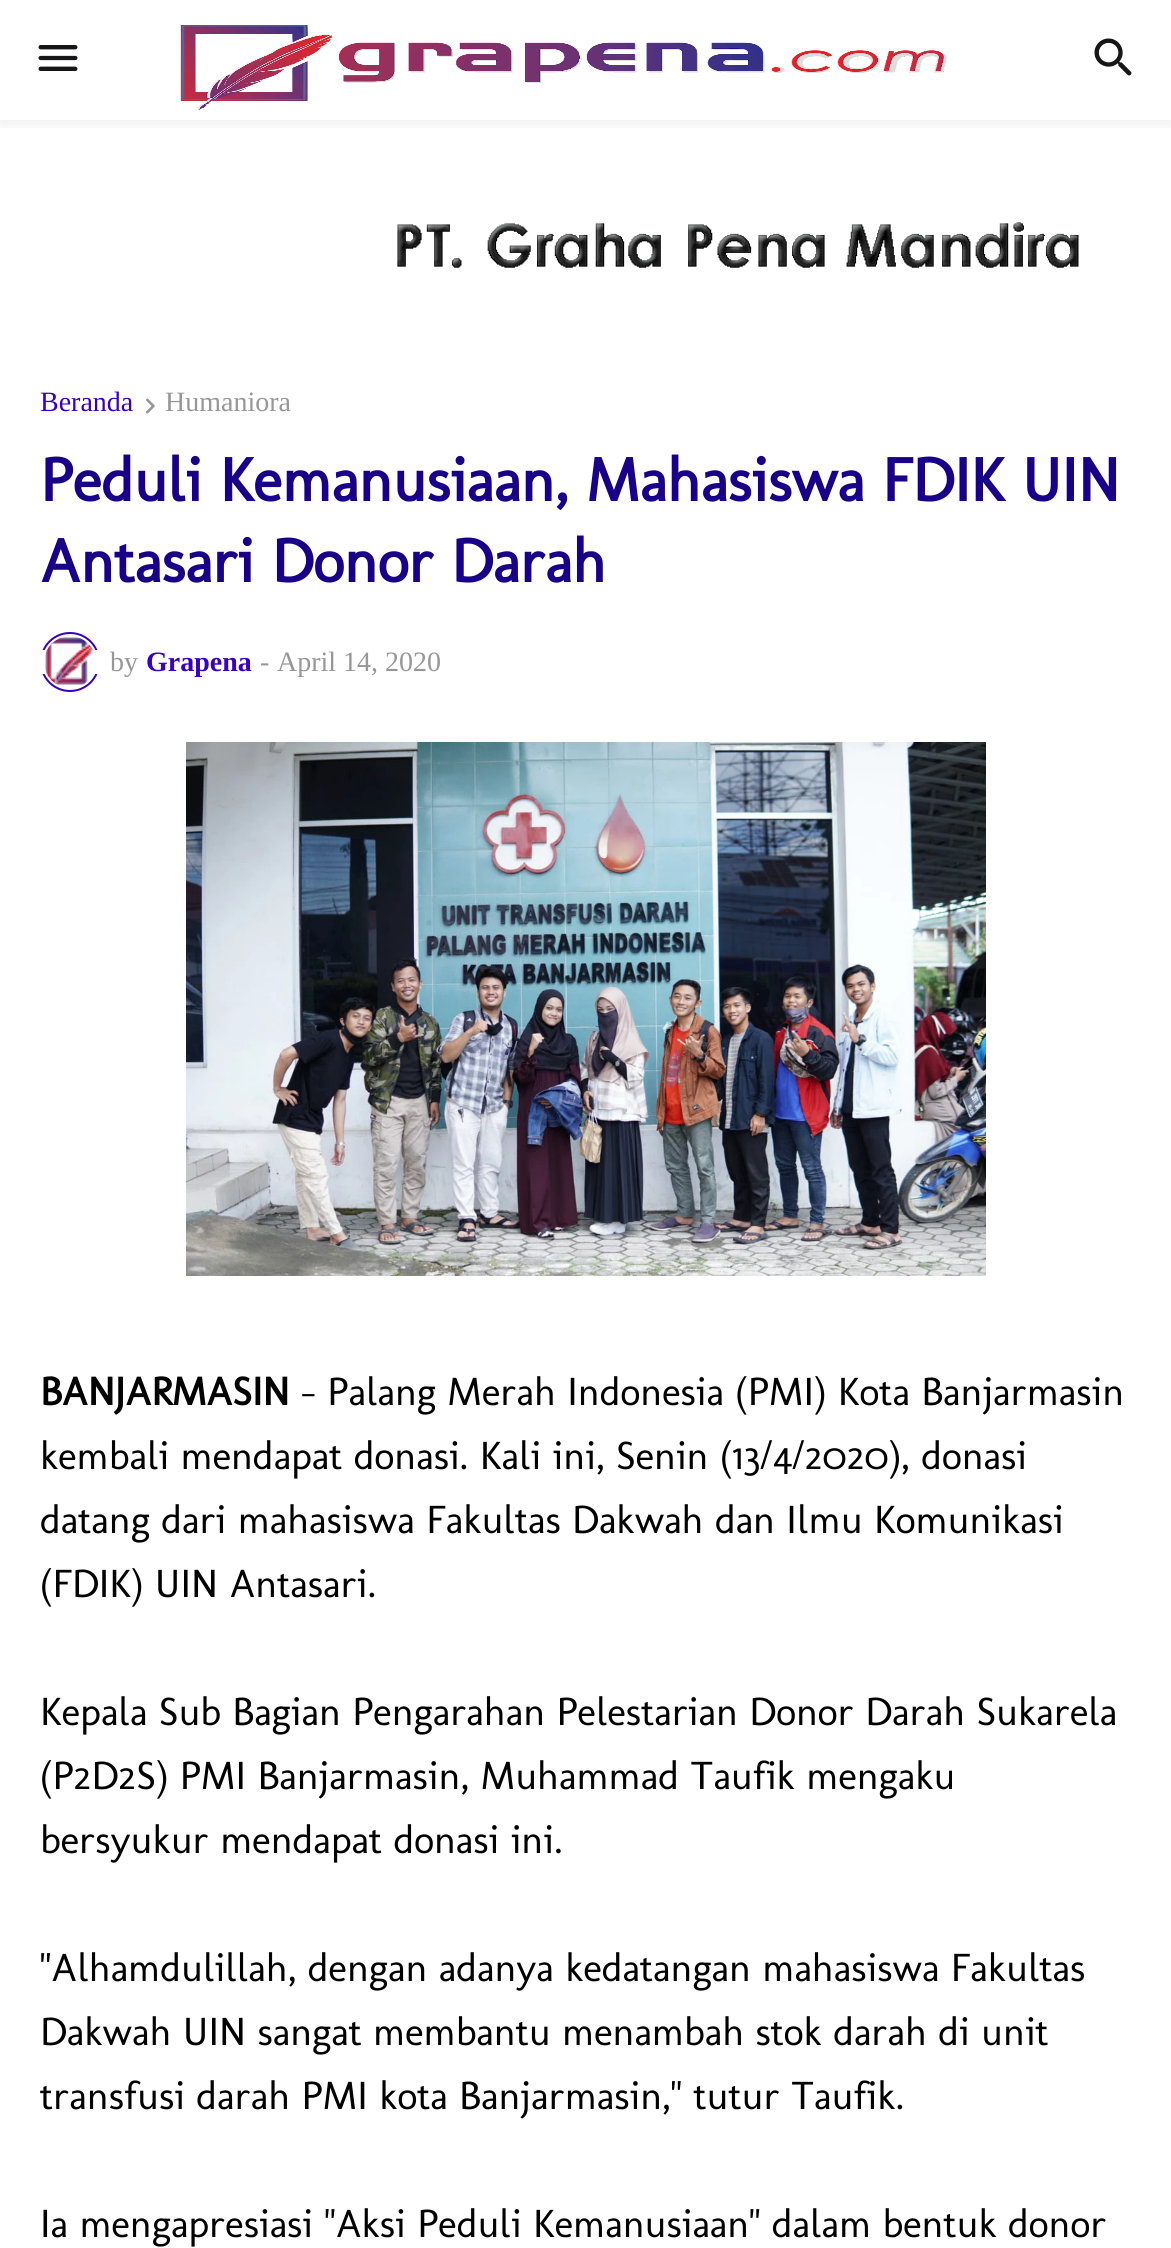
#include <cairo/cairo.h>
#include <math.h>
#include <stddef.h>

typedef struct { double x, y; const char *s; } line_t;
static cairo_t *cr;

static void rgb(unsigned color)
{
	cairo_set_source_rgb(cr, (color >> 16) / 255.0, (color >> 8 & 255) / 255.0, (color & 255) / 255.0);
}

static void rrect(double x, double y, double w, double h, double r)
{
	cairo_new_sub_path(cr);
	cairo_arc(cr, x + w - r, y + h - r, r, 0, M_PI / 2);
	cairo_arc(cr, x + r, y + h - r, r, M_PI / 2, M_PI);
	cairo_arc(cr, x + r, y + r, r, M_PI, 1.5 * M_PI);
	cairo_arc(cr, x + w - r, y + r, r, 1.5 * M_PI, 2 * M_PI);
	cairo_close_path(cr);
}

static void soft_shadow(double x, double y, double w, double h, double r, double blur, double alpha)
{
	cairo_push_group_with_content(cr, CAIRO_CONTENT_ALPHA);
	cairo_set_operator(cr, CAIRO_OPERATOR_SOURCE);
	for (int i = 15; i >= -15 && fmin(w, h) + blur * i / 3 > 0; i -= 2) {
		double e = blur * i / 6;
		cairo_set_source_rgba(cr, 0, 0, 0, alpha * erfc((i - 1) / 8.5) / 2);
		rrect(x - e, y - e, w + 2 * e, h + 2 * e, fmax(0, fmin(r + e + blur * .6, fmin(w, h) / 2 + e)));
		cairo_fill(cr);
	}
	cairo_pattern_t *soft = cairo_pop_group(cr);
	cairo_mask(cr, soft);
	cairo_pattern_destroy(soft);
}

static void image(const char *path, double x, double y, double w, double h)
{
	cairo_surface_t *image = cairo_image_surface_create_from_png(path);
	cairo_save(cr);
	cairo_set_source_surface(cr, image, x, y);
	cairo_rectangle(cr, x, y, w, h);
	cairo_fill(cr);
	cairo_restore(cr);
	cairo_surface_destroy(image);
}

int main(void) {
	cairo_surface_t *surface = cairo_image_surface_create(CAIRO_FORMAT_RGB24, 1171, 2248);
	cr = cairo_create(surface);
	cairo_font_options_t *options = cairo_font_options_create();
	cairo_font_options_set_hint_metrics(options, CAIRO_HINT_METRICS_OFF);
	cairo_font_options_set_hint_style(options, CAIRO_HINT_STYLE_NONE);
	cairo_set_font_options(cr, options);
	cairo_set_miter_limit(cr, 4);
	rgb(0xffffff);
	cairo_paint(cr);
	cairo_save(cr);
	cairo_rectangle(cr, 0, 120, 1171, 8);
	cairo_clip(cr);
	rgb(0x000000);
	soft_shadow(0, 0, 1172, 120, 0, 10, 0.1);
	cairo_restore(cr);
	image("img/1.png", 38, 45, 40, 26);
	image("img/2.png", 180, 25, 767, 87);
	image("img/3.png", 1094, 38, 38, 38);
	image("img/4.png", 397, 222, 682, 46);
	image("img/5.png", 146, 398, 9, 16);
	cairo_arc(cr, 70, 662, 29, 0, 2 * M_PI);
	rgb(0x3700c7);
	cairo_stroke(cr);
	rgb(0xffffff);
	cairo_rectangle(cr, 40, 650, 60, 24);
	cairo_fill(cr);
	image("img/6.png", 45, 636, 48, 49);
	image("img/7.png", 186, 742, 800, 534);
	cairo_select_font_face(cr, "Liberation Serif", CAIRO_FONT_SLANT_NORMAL, CAIRO_FONT_WEIGHT_NORMAL);
	cairo_set_font_size(cr, 28);
	rgb(0x3700c7);
	cairo_move_to(cr, 40, 411);
	cairo_show_text(cr, "Beranda");
	rgb(0x979797);
	cairo_move_to(cr, 165, 411);
	cairo_show_text(cr, "Humaniora");
	cairo_select_font_face(cr, "Molengo", CAIRO_FONT_SLANT_NORMAL, CAIRO_FONT_WEIGHT_BOLD);
	cairo_set_font_size(cr, 62);
	rgb(0x190089);
	cairo_move_to(cr, 40, 501);
	cairo_show_text(cr, "Peduli Kemanusiaan, Mahasiswa FDIK UIN");
	cairo_move_to(cr, 40, 582);
	cairo_show_text(cr, "Antasari Donor Darah");
	cairo_select_font_face(cr, "Liberation Serif", CAIRO_FONT_SLANT_NORMAL, CAIRO_FONT_WEIGHT_NORMAL);
	cairo_set_font_size(cr, 28);
	rgb(0x979797);
	cairo_move_to(cr, 110, 671);
	cairo_show_text(cr, "by");
	cairo_select_font_face(cr, "Liberation Serif", CAIRO_FONT_SLANT_NORMAL, CAIRO_FONT_WEIGHT_BOLD);
	rgb(0x3700c7);
	cairo_move_to(cr, 146, 671);
	cairo_show_text(cr, "Grapena");
	cairo_select_font_face(cr, "Liberation Serif", CAIRO_FONT_SLANT_NORMAL, CAIRO_FONT_WEIGHT_NORMAL);
	rgb(0x979797);
	cairo_move_to(cr, 260, 671);
	cairo_show_text(cr, "-");
	cairo_move_to(cr, 277, 671);
	cairo_show_text(cr, "April 14, 2020");
	cairo_select_font_face(cr, "Molengo", CAIRO_FONT_SLANT_NORMAL, CAIRO_FONT_WEIGHT_BOLD);
	cairo_set_font_size(cr, 40);
	rgb(0x000000);
	cairo_move_to(cr, 40, 1405);
	cairo_show_text(cr, "BANJARMASIN");
	cairo_select_font_face(cr, "Molengo", CAIRO_FONT_SLANT_NORMAL, CAIRO_FONT_WEIGHT_NORMAL);
	{
		static const line_t items[] = {
			{301, 1405, "- Palang Merah Indonesia (PMI) Kota Banjarmasin"},
			{40, 1469, "kembali mendapat donasi. Kali ini, Senin (13/4/2020), donasi"},
			{40, 1533, "datang dari mahasiswa Fakultas Dakwah dan Ilmu Komunikasi"},
			{40, 1597, "(FDIK) UIN Antasari."},
			{40, 1725, "Kepala Sub Bagian Pengarahan Pelestarian Donor Darah Sukarela"},
			{40, 1789, "(P2D2S) PMI Banjarmasin, Muhammad Taufik mengaku"},
			{40, 1853, "bersyukur mendapat donasi ini."},
			{40, 1981, "\"Alhamdulillah, dengan adanya kedatangan mahasiswa Fakultas"},
			{40, 2045, "Dakwah UIN sangat membantu menambah stok darah di unit"},
			{40, 2109, "transfusi darah PMI kota Banjarmasin,\" tutur Taufik."},
			{40, 2237, "Ia mengapresiasi \"Aksi Peduli Kemanusiaan\" dalam bentuk donor"},
		};
		for (size_t i = 0; i < sizeof items / sizeof *items; i++) {
			cairo_move_to(cr, items[i].x, items[i].y);
			cairo_show_text(cr, items[i].s);
		}
	}
	cairo_surface_write_to_png(surface, "page.png");
	cairo_font_options_destroy(options);
	cairo_destroy(cr);
	cairo_surface_destroy(surface);
	return 0;
}
